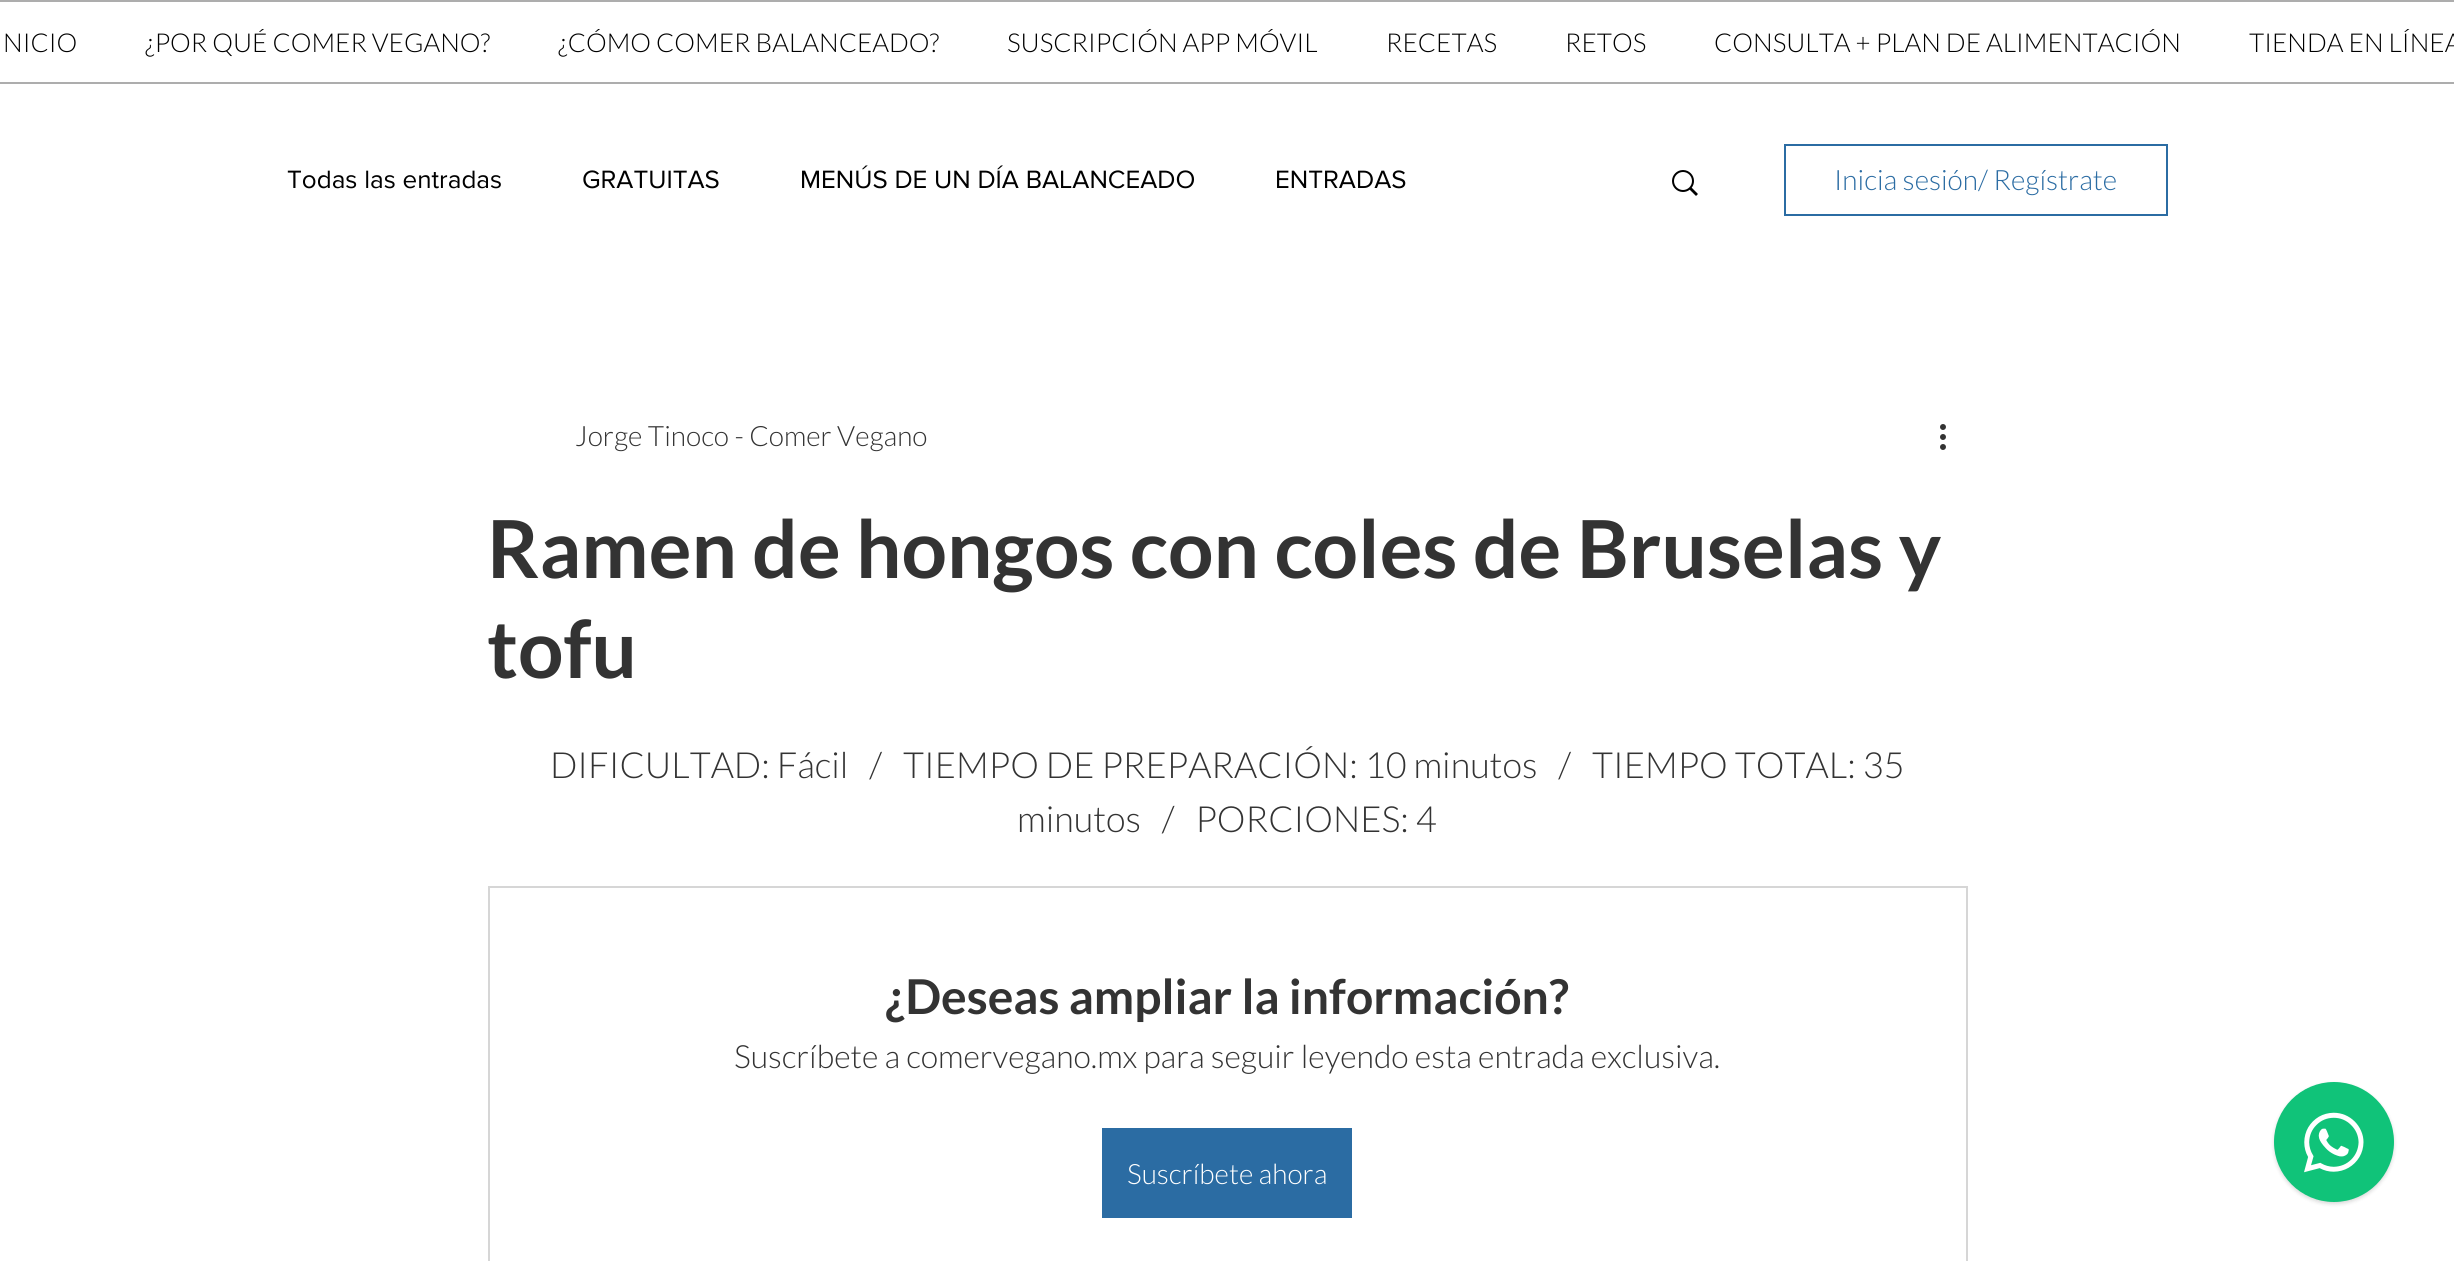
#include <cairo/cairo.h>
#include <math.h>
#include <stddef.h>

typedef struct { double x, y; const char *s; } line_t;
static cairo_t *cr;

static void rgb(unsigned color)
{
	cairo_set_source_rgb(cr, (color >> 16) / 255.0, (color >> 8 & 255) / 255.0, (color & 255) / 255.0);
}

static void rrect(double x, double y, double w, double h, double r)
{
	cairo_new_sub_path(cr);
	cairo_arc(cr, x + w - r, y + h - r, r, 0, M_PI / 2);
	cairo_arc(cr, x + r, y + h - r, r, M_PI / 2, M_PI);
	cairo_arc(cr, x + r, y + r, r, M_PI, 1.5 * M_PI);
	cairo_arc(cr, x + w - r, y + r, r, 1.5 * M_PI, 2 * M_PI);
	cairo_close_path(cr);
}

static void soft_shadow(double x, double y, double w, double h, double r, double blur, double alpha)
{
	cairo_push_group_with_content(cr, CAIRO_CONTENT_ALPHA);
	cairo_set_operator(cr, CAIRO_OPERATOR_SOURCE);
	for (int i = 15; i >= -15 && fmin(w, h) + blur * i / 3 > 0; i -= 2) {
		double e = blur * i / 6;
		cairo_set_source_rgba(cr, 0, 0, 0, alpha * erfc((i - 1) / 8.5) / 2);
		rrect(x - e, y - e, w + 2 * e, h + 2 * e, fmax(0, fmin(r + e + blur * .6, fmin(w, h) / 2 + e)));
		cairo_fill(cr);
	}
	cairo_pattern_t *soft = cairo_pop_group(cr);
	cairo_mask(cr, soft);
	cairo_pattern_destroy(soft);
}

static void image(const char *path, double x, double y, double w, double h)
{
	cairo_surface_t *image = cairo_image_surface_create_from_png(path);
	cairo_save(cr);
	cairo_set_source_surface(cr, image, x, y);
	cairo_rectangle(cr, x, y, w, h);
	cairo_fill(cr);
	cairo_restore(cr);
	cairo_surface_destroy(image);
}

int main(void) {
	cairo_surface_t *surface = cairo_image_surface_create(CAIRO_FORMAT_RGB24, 2454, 1261);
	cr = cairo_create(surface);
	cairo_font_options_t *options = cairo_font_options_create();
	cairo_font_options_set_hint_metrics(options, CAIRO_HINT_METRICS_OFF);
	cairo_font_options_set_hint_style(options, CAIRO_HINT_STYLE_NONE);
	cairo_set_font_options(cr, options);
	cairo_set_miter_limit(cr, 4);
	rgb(0xffffff);
	cairo_paint(cr);
	cairo_rectangle(cr, -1, 1, 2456, 82);
	rgb(0xadadad);
	cairo_stroke(cr);
	image("img/1.png", 1672, 170, 26, 26);
	cairo_rectangle(cr, 1785, 145, 382, 70);
	rgb(0x2b6ca3);
	cairo_stroke(cr);
	image("img/2.png", 1940, 424, 6, 26);
	cairo_rectangle(cr, 489, 887, 1478, 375);
	rgb(0xd6d6d6);
	cairo_stroke(cr);
	rgb(0x2b6ca3);
	cairo_rectangle(cr, 1102, 1128, 250, 90);
	cairo_fill(cr);
	rgb(0x000000);
	soft_shadow(2274, 1084, 120, 120, 60, 2, 0.15);
	rgb(0x10c379);
	cairo_arc(cr, 2334, 1142, 60, 0, 2 * M_PI);
	cairo_fill(cr);
	image("img/3.png", 2304, 1112, 60, 61);
	cairo_select_font_face(cr, "Lato Light", CAIRO_FONT_SLANT_NORMAL, CAIRO_FONT_WEIGHT_NORMAL);
	cairo_set_font_size(cr, 26);
	rgb(0x000000);
	{
		static const line_t items[] = {
			{3, 52, "NICIO"},
			{145, 52, "¿POR QUÉ COMER VEGANO?"},
			{558, 52, "¿CÓMO COMER BALANCEADO?"},
			{1007, 52, "SUSCRIPCIÓN APP MÓVIL"},
			{1386, 52, "RECETAS"},
			{1565, 52, "RETOS"},
			{1714, 52, "CONSULTA + PLAN DE ALIMENTACIÓN"},
			{2249, 52, "TIENDA EN LÍNEA"},
		};
		for (size_t i = 0; i < sizeof items / sizeof *items; i++) {
			cairo_move_to(cr, items[i].x, items[i].y);
			cairo_show_text(cr, items[i].s);
		}
	}
	cairo_select_font_face(cr, "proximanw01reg", CAIRO_FONT_SLANT_NORMAL, CAIRO_FONT_WEIGHT_NORMAL);
	{
		static const line_t items[] = {
			{287, 188, "Todas las entradas"},
			{582, 188, "GRATUITAS"},
			{800, 188, "MENÚS DE UN DÍA BALANCEADO"},
			{1275, 188, "ENTRADAS"},
		};
		for (size_t i = 0; i < sizeof items / sizeof *items; i++) {
			cairo_move_to(cr, items[i].x, items[i].y);
			cairo_show_text(cr, items[i].s);
		}
	}
	cairo_select_font_face(cr, "Lato Light", CAIRO_FONT_SLANT_NORMAL, CAIRO_FONT_WEIGHT_NORMAL);
	cairo_set_font_size(cr, 28);
	rgb(0x2b6ca3);
	cairo_move_to(cr, 1834, 190);
	cairo_show_text(cr, "Inicia sesión/ Regístrate");
	rgb(0x333333);
	cairo_move_to(cr, 575, 446);
	cairo_show_text(cr, "Jorge Tinoco - Comer Vegano");
	cairo_select_font_face(cr, "Lato", CAIRO_FONT_SLANT_NORMAL, CAIRO_FONT_WEIGHT_BOLD);
	cairo_set_font_size(cr, 80);
	cairo_move_to(cr, 487, 578);
	cairo_show_text(cr, "Ramen de hongos con coles de Bruselas y");
	cairo_move_to(cr, 487, 678);
	cairo_show_text(cr, "tofu");
	cairo_select_font_face(cr, "Lato Light", CAIRO_FONT_SLANT_NORMAL, CAIRO_FONT_WEIGHT_NORMAL);
	cairo_set_font_size(cr, 36);
	{
		static const line_t items[] = {
			{550, 778, "DIFICULTAD: Fácil   /"},
			{903, 778, "TIEMPO DE PREPARACIÓN: 10 minutos   /   TIEMPO TOTAL: 35"},
			{1017, 832, "minutos   /   PORCIONES: 4"},
		};
		for (size_t i = 0; i < sizeof items / sizeof *items; i++) {
			cairo_move_to(cr, items[i].x, items[i].y);
			cairo_show_text(cr, items[i].s);
		}
	}
	cairo_select_font_face(cr, "Lato", CAIRO_FONT_SLANT_NORMAL, CAIRO_FONT_WEIGHT_BOLD);
	cairo_set_font_size(cr, 48);
	cairo_move_to(cr, 885, 1014);
	cairo_show_text(cr, "¿Deseas ampliar la información?");
	cairo_select_font_face(cr, "Lato Light", CAIRO_FONT_SLANT_NORMAL, CAIRO_FONT_WEIGHT_NORMAL);
	cairo_set_font_size(cr, 32);
	cairo_move_to(cr, 734, 1068);
	cairo_show_text(cr, "Suscríbete a comervegano.mx para seguir leyendo esta entrada exclusiva.");
	cairo_set_font_size(cr, 28);
	rgb(0xffffff);
	cairo_move_to(cr, 1127, 1184);
	cairo_show_text(cr, "Suscríbete ahora");
	cairo_surface_write_to_png(surface, "page.png");
	cairo_font_options_destroy(options);
	cairo_destroy(cr);
	cairo_surface_destroy(surface);
	return 0;
}
